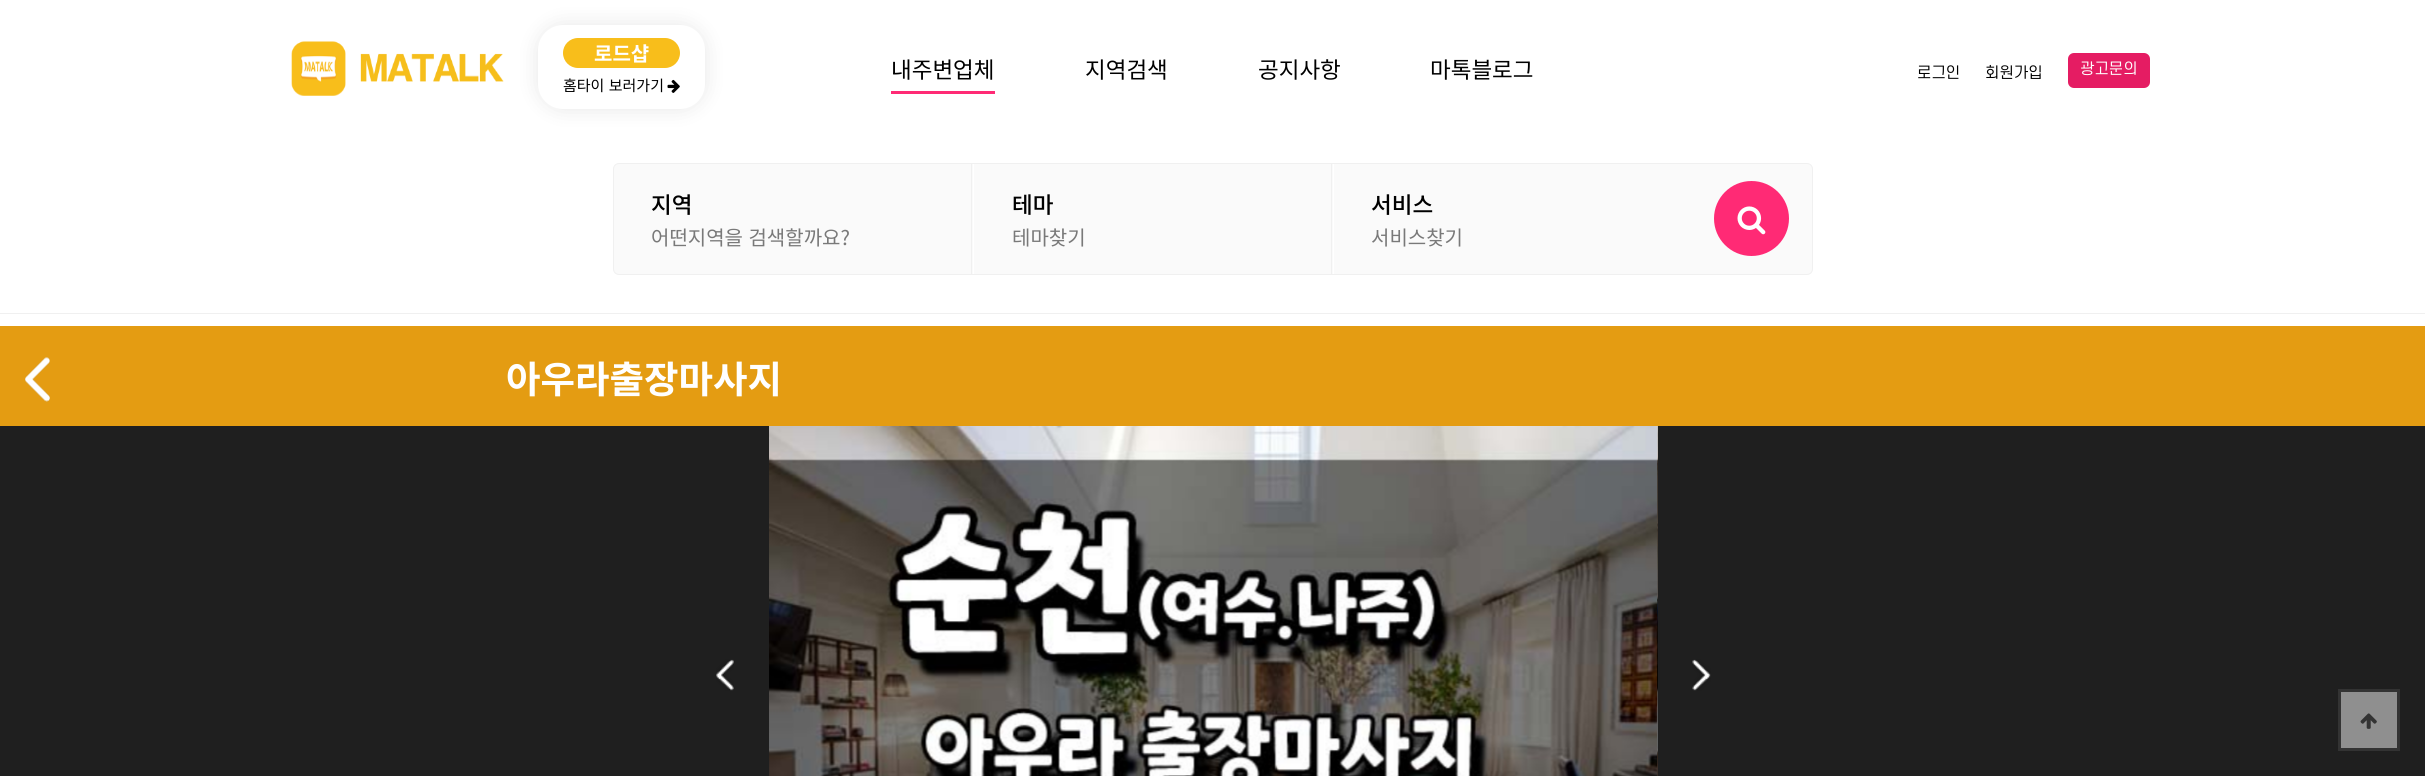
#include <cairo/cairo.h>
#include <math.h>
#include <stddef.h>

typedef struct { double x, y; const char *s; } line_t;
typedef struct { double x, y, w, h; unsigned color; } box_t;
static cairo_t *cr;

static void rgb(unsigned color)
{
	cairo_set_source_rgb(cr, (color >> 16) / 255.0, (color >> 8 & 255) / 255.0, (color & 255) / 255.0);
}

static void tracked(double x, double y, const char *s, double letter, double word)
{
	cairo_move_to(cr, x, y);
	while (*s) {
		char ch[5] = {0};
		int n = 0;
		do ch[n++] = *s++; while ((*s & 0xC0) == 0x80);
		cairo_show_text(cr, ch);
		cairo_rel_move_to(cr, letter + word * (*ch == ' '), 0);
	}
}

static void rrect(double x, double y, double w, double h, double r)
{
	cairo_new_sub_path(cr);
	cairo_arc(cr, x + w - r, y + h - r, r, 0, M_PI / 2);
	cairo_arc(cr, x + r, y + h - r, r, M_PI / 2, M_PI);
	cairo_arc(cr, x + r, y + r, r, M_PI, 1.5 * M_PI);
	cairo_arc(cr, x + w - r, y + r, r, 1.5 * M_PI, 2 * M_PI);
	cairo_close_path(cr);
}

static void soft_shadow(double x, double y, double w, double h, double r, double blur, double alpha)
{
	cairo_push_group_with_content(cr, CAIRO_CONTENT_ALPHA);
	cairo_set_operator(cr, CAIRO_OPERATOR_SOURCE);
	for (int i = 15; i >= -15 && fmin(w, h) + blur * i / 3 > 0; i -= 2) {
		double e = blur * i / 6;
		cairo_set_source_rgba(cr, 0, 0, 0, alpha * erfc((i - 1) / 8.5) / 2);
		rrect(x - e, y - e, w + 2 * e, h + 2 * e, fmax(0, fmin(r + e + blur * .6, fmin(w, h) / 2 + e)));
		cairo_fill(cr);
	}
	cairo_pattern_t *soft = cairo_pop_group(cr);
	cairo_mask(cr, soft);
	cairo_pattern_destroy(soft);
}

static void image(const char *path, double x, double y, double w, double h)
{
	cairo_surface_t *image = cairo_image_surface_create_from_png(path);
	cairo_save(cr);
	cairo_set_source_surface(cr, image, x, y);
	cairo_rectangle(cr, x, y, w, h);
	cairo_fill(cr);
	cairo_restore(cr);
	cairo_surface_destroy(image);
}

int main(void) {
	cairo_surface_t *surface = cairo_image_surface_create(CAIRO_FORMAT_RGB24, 2425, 776);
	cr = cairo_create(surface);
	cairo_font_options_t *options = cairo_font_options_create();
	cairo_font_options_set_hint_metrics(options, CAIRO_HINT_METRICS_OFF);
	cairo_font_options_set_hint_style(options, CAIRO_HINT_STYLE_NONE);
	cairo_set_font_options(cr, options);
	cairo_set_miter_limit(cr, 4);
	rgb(0xffffff);
	cairo_paint(cr);
	rgb(0x000000);
	soft_shadow(538, 25, 167, 84, 25, 10, 0.1);
	rgb(0xffffff);
	rrect(538, 25, 167, 84, 25);
	cairo_fill(cr);
	rgb(0xf8be1b);
	rrect(563, 38, 117, 30, 15);
	cairo_fill(cr);
	image("img/1.png", 667, 79, 13, 14);
	image("img/2.png", 291, 41, 213, 55);
	rgb(0xff2a75);
	cairo_rectangle(cr, 891, 91, 104, 3);
	cairo_fill(cr);
	rgb(0xe51c63);
	rrect(2068, 53, 82, 35, 6);
	cairo_fill(cr);
	rgb(0xf0f0f0);
	cairo_rectangle(cr, 0, 313, 2425, 1);
	cairo_fill(cr);
	rgb(0xfafafa);
	rrect(613.5, 163.5, 1199, 111, 5.5);
	cairo_fill_preserve(cr);
	rgb(0xf0f0f0);
	cairo_set_line_width(cr, 1);
	cairo_stroke(cr);
	{
		static const box_t items[] = {
			{971, 164, 1, 110, 0xf0f0f0},
			{1331, 164, 1, 110, 0xf0f0f0},
			{973, 164, 1, 110, 0xffffff},
			{1333, 164, 1, 110, 0xffffff},
		};
		for (size_t i = 0; i < sizeof items / sizeof *items; i++) {
			rgb(items[i].color);
			cairo_rectangle(cr, items[i].x, items[i].y, items[i].w, items[i].h);
			cairo_fill(cr);
		}
	}
	rgb(0xff2a75);
	cairo_arc(cr, 1751.5, 218.5, 37.5, 0, 2 * M_PI);
	cairo_fill(cr);
	image("img/3.png", 1737, 206, 29, 29);
	rgb(0xe49c12);
	cairo_rectangle(cr, 0, 326, 2425, 100);
	cairo_fill(cr);
	image("img/4.png", 25, 357, 25, 45);
	rgb(0x1f1f1f);
	cairo_rectangle(cr, 0, 426, 2425, 350);
	cairo_fill(cr);
	image("img/5.png", 769, 426, 889, 350);
	image("img/6.png", 769, 426, 1, 326);
	image("img/7.png", 1657, 426, 1, 350);
	image("img/8.png", 1657, 426, 1, 350);
	image("img/9.png", 716, 659, 18, 32);
	image("img/10.png", 1692, 659, 19, 32);
	rgb(0x8f8f8f);
	cairo_rectangle(cr, 2339.5, 690.5, 59, 59);
	cairo_fill_preserve(cr);
	rgb(0x333333);
	cairo_set_line_width(cr, 3);
	cairo_stroke(cr);
	image("img/11.png", 2360, 713, 17, 16);
	cairo_select_font_face(cr, "Noto Sans KR", CAIRO_FONT_SLANT_NORMAL, CAIRO_FONT_WEIGHT_BOLD);
	cairo_set_font_size(cr, 20);
	rgb(0xffffff);
	cairo_move_to(cr, 594, 61);
	cairo_show_text(cr, "로드샵");
	cairo_select_font_face(cr, "Noto Sans KR", CAIRO_FONT_SLANT_NORMAL, CAIRO_FONT_WEIGHT_NORMAL);
	cairo_set_font_size(cr, 15);
	rgb(0x000000);
	tracked(563, 91, "홈타이 보러가기", 0, 1);
	cairo_set_font_size(cr, 22.5);
	{
		static const line_t items[] = {
			{891, 78, "내주변업체"},
			{1085, 78, "지역검색"},
			{1258, 78, "공지사항"},
			{1430, 78, "마톡블로그"},
		};
		for (size_t i = 0; i < sizeof items / sizeof *items; i++) {
			cairo_move_to(cr, items[i].x, items[i].y);
			cairo_show_text(cr, items[i].s);
		}
	}
	cairo_select_font_face(cr, "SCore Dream", CAIRO_FONT_SLANT_NORMAL, CAIRO_FONT_WEIGHT_NORMAL);
	cairo_set_font_size(cr, 15);
	cairo_move_to(cr, 1917, 78);
	cairo_show_text(cr, "로그인");
	cairo_move_to(cr, 1985, 78);
	cairo_show_text(cr, "회원가입");
	rgb(0xffffff);
	cairo_move_to(cr, 2080, 74);
	cairo_show_text(cr, "광고문의");
	cairo_select_font_face(cr, "Noto Sans KR Medium", CAIRO_FONT_SLANT_NORMAL, CAIRO_FONT_WEIGHT_NORMAL);
	cairo_set_font_size(cr, 22.5);
	rgb(0x000000);
	cairo_move_to(cr, 651, 213);
	cairo_show_text(cr, "지역");
	cairo_select_font_face(cr, "Noto Sans KR", CAIRO_FONT_SLANT_NORMAL, CAIRO_FONT_WEIGHT_NORMAL);
	cairo_set_font_size(cr, 20);
	rgb(0x797979);
	tracked(651, 245, "어떤지역을 검색할까요?", 0, 1);
	cairo_select_font_face(cr, "Noto Sans KR Medium", CAIRO_FONT_SLANT_NORMAL, CAIRO_FONT_WEIGHT_NORMAL);
	cairo_set_font_size(cr, 22.5);
	rgb(0x000000);
	cairo_move_to(cr, 1012, 213);
	cairo_show_text(cr, "테마");
	cairo_select_font_face(cr, "Noto Sans KR", CAIRO_FONT_SLANT_NORMAL, CAIRO_FONT_WEIGHT_NORMAL);
	cairo_set_font_size(cr, 20);
	rgb(0x797979);
	cairo_move_to(cr, 1012, 245);
	cairo_show_text(cr, "테마찾기");
	cairo_select_font_face(cr, "Noto Sans KR Medium", CAIRO_FONT_SLANT_NORMAL, CAIRO_FONT_WEIGHT_NORMAL);
	cairo_set_font_size(cr, 22.5);
	rgb(0x000000);
	cairo_move_to(cr, 1371, 213);
	cairo_show_text(cr, "서비스");
	cairo_select_font_face(cr, "Noto Sans KR", CAIRO_FONT_SLANT_NORMAL, CAIRO_FONT_WEIGHT_NORMAL);
	cairo_set_font_size(cr, 20);
	rgb(0x797979);
	cairo_move_to(cr, 1371, 245);
	cairo_show_text(cr, "서비스찾기");
	cairo_select_font_face(cr, "Noto Sans KR", CAIRO_FONT_SLANT_NORMAL, CAIRO_FONT_WEIGHT_BOLD);
	cairo_set_font_size(cr, 37.5);
	rgb(0xffffff);
	cairo_move_to(cr, 506, 393);
	cairo_show_text(cr, "아우라출장마사지");
	cairo_surface_write_to_png(surface, "page.png");
	cairo_font_options_destroy(options);
	cairo_destroy(cr);
	cairo_surface_destroy(surface);
	return 0;
}
